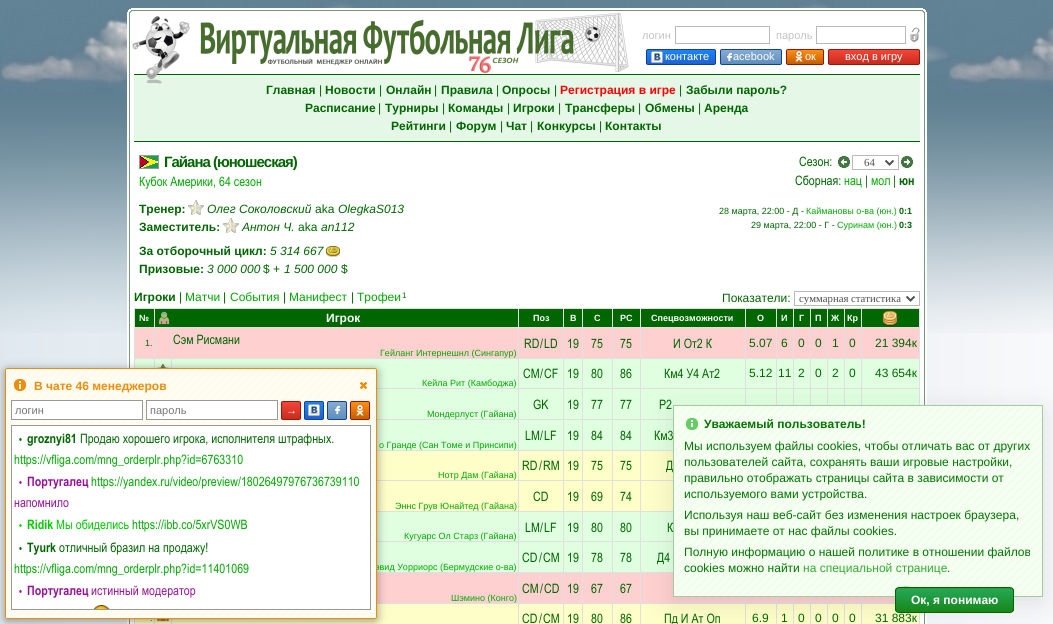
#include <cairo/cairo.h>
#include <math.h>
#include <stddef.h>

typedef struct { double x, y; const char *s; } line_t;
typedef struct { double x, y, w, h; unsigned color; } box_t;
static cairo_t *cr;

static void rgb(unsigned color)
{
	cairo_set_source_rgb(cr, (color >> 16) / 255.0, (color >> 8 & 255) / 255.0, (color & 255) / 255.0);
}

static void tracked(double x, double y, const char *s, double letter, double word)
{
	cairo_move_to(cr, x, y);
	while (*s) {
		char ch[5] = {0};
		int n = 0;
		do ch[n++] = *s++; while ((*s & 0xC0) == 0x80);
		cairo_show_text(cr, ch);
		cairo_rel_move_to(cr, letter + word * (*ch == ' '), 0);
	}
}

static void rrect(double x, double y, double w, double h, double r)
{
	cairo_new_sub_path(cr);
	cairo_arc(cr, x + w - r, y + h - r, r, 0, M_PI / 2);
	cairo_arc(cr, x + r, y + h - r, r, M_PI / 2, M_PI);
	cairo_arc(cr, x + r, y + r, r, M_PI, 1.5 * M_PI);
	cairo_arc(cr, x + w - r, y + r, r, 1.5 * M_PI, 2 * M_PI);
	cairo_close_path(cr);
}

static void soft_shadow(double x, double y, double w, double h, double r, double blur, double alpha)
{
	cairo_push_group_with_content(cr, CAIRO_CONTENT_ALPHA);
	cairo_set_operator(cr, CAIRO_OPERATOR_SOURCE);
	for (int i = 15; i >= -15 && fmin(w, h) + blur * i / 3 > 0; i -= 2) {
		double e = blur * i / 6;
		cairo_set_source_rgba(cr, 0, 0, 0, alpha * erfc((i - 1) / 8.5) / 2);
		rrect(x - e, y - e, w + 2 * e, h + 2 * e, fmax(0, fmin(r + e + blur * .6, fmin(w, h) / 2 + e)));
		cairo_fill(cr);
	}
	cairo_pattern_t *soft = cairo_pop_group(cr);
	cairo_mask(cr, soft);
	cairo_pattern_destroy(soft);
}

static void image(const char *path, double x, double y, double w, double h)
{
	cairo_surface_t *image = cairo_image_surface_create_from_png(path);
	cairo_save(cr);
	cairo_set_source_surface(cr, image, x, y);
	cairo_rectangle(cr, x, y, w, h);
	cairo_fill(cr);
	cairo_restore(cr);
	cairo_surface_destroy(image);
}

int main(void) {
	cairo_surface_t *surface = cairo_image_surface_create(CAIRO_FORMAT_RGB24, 1053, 624);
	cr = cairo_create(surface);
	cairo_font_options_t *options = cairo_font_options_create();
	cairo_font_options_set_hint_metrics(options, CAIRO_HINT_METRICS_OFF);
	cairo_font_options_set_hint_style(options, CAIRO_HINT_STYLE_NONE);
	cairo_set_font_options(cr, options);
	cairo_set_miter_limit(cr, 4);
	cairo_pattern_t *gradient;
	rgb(0xffffff);
	cairo_paint(cr);
	image("img/1.png", 0, 333, 1053, 291);
	image("img/2.png", 0, 0, 1053, 96);
	image("img/3.png", 127, 8, 5, 5);
	image("img/4.png", 132, 8, 790, 5);
	image("img/5.png", 922, 8, 5, 5);
	image("img/28.png", 0, 96, 1053, 237);
	image("img/6.png", 127, 13, 5, 611);
	rgb(0xffffff);
	cairo_rectangle(cr, 132, 13, 790, 611);
	cairo_fill(cr);
	image("img/6.png", 922, 13, 5, 611);
	rgb(0x006600);
	cairo_rectangle(cr, 134, 74, 786, 1);
	cairo_fill(cr);
	rgb(0xe5f7e6);
	cairo_rectangle(cr, 134, 75, 786, 66);
	cairo_fill(cr);
	image("img/7.png", 132, 16, 58, 68);
	image("img/8.png", 200, 13, 429, 60);
	cairo_rectangle(cr, 675.5, 26.5, 94, 17);
	rgb(0xbababa);
	cairo_set_line_width(cr, 1);
	cairo_stroke(cr);
	cairo_rectangle(cr, 816.5, 26.5, 89, 17);
	cairo_stroke(cr);
	image("img/9.png", 910, 27, 10, 16);
	cairo_save(cr);
	rrect(646, 49, 70, 16, 2);
	cairo_clip(cr);
	gradient = cairo_pattern_create_linear(681, 50, 681, 64);
	cairo_pattern_add_color_stop_rgba(gradient, 0.05, 0.106, 0.518, 0.961, 1);
	cairo_pattern_add_color_stop_rgba(gradient, 1, 0.118, 0.384, 0.816, 1);
	cairo_set_source(cr, gradient);
	cairo_pattern_destroy(gradient);
	cairo_rectangle(cr, 646, 50, 70, 14);
	cairo_fill(cr);
	cairo_restore(cr);
	rrect(646.5, 49.5, 69, 15, 1.5);
	rgb(0x133f9d);
	cairo_stroke(cr);
	image("img/10.png", 651, 51, 12, 12);
	cairo_save(cr);
	rrect(720, 49, 62, 16, 2);
	cairo_clip(cr);
	gradient = cairo_pattern_create_linear(751, 50, 751, 64);
	cairo_pattern_add_color_stop_rgba(gradient, 0.05, 0.514, 0.667, 0.824, 1);
	cairo_pattern_add_color_stop_rgba(gradient, 1, 0.373, 0.557, 0.737, 1);
	cairo_set_source(cr, gradient);
	cairo_pattern_destroy(gradient);
	cairo_rectangle(cr, 720, 50, 62, 14);
	cairo_fill(cr);
	cairo_restore(cr);
	rrect(720.5, 49.5, 61, 15, 1.5);
	cairo_stroke(cr);
	image("img/11.png", 727, 53, 5, 8);
	cairo_save(cr);
	rrect(786, 49, 38, 16, 2);
	cairo_clip(cr);
	gradient = cairo_pattern_create_linear(805, 50, 805, 64);
	cairo_pattern_add_color_stop_rgba(gradient, 0.05, 0.98, 0.557, 0.071, 1);
	cairo_pattern_add_color_stop_rgba(gradient, 1, 0.761, 0.365, 0.016, 1);
	cairo_set_source(cr, gradient);
	cairo_pattern_destroy(gradient);
	cairo_rectangle(cr, 786, 50, 38, 14);
	cairo_fill(cr);
	cairo_restore(cr);
	rrect(786.5, 49.5, 37, 15, 1.5);
	rgb(0x9c1509);
	cairo_stroke(cr);
	image("img/12.png", 795, 50, 8, 12);
	cairo_save(cr);
	rrect(828, 49, 92, 16, 2);
	cairo_clip(cr);
	gradient = cairo_pattern_create_linear(874, 50, 874, 64);
	cairo_pattern_add_color_stop_rgba(gradient, 0.05, 0.949, 0.267, 0.216, 1);
	cairo_pattern_add_color_stop_rgba(gradient, 1, 0.776, 0.176, 0.122, 1);
	cairo_set_source(cr, gradient);
	cairo_pattern_destroy(gradient);
	cairo_rectangle(cr, 828, 50, 92, 14);
	cairo_fill(cr);
	cairo_restore(cr);
	rrect(828.5, 49.5, 91, 15, 1.5);
	cairo_stroke(cr);
	rgb(0x006600);
	cairo_rectangle(cr, 134, 141, 786, 1);
	cairo_fill(cr);
	image("img/13.png", 139, 155, 20, 14);
	image("img/14.png", 188, 200, 16, 15);
	image("img/14.png", 223, 218, 16, 15);
	image("img/15.png", 326, 246, 14, 11);
	image("img/16.png", 838, 156, 12, 12);
	cairo_rectangle(cr, 852.5, 155.5, 46, 14);
	rgb(0xbababa);
	cairo_stroke(cr);
	cairo_new_path(cr);
	cairo_move_to(cr, 885.5, 160.5);
	cairo_line_to(cr, 889.5, 164.5);
	cairo_line_to(cr, 893.5, 160.5);
	rgb(0x505050);
	cairo_set_line_width(cr, 2);
	cairo_stroke(cr);
	image("img/17.png", 901, 156, 12, 12);
	cairo_rectangle(cr, 794.5, 291.5, 125, 14);
	rgb(0xbababa);
	cairo_set_line_width(cr, 1);
	cairo_stroke(cr);
	cairo_new_path(cr);
	cairo_move_to(cr, 906.5, 296.5);
	cairo_line_to(cr, 910.5, 300.5);
	cairo_line_to(cr, 914.5, 296.5);
	rgb(0x505050);
	cairo_set_line_width(cr, 2);
	cairo_stroke(cr);
	{
		static const box_t items[] = {
			{134, 308, 786, 1, 0xe0e0e0},
			{919, 308, 1, 316, 0xe0e0e0},
			{134, 308, 1, 316, 0xe0e0e0},
			{135, 309, 784, 18, 0x006600},
			{861, 327, 59, 1, 0xe0e0e0},
			{135, 328, 784, 30, 0xffd0d0},
			{861, 358, 59, 1, 0xe0e0e0},
			{135, 359, 784, 29, 0xe0ffe0},
			{861, 388, 59, 1, 0xe0e0e0},
			{377, 389, 542, 30, 0xe0ffe0},
			{861, 388, 1, 17, 0xe0e0e0},
			{844, 388, 18, 1, 0xe0e0e0},
			{861, 358, 1, 31, 0xe0e0e0},
			{844, 358, 18, 1, 0xe0e0e0},
			{861, 327, 1, 32, 0xe0e0e0},
			{844, 327, 18, 1, 0xe0e0e0},
			{844, 388, 1, 17, 0xe0e0e0},
			{827, 388, 18, 1, 0xe0e0e0},
			{844, 358, 1, 31, 0xe0e0e0},
			{827, 358, 18, 1, 0xe0e0e0},
			{844, 327, 1, 32, 0xe0e0e0},
			{827, 327, 18, 1, 0xe0e0e0},
			{827, 388, 1, 17, 0xe0e0e0},
			{810, 388, 18, 1, 0xe0e0e0},
			{827, 358, 1, 31, 0xe0e0e0},
			{810, 358, 18, 1, 0xe0e0e0},
			{827, 327, 1, 32, 0xe0e0e0},
			{810, 327, 18, 1, 0xe0e0e0},
			{810, 388, 1, 17, 0xe0e0e0},
			{793, 388, 18, 1, 0xe0e0e0},
			{810, 358, 1, 31, 0xe0e0e0},
			{793, 358, 18, 1, 0xe0e0e0},
			{810, 327, 1, 32, 0xe0e0e0},
			{793, 327, 18, 1, 0xe0e0e0},
			{793, 388, 1, 17, 0xe0e0e0},
			{776, 388, 18, 1, 0xe0e0e0},
			{793, 358, 1, 31, 0xe0e0e0},
			{776, 358, 18, 1, 0xe0e0e0},
			{793, 327, 1, 32, 0xe0e0e0},
			{776, 327, 18, 1, 0xe0e0e0},
			{776, 388, 1, 17, 0xe0e0e0},
			{745, 388, 32, 1, 0xe0e0e0},
			{776, 358, 1, 31, 0xe0e0e0},
			{745, 358, 32, 1, 0xe0e0e0},
			{776, 327, 1, 32, 0xe0e0e0},
			{745, 327, 32, 1, 0xe0e0e0},
			{745, 388, 1, 17, 0xe0e0e0},
			{640, 388, 106, 1, 0xe0e0e0},
			{745, 358, 1, 31, 0xe0e0e0},
			{640, 358, 106, 1, 0xe0e0e0},
			{745, 327, 1, 32, 0xe0e0e0},
			{640, 327, 106, 1, 0xe0e0e0},
			{640, 419, 33, 1, 0xe0e0e0},
			{377, 420, 296, 30, 0xe0ffe0},
			{640, 450, 33, 1, 0xe0e0e0},
			{377, 451, 296, 29, 0xfefec9},
			{640, 480, 33, 1, 0xe0e0e0},
			{377, 481, 296, 30, 0xfefec9},
			{640, 511, 33, 1, 0xe0e0e0},
			{377, 512, 296, 29, 0xe0ffe0},
			{640, 541, 33, 1, 0xe0e0e0},
			{377, 542, 296, 30, 0xe0ffe0},
			{640, 572, 33, 1, 0xe0e0e0},
			{377, 573, 518, 30, 0xffd0d0},
			{861, 603, 34, 1, 0xe0e0e0},
			{135, 604, 784, 20, 0xfefec9},
			{861, 603, 1, 21, 0xe0e0e0},
			{844, 603, 18, 1, 0xe0e0e0},
			{844, 603, 1, 21, 0xe0e0e0},
			{827, 603, 18, 1, 0xe0e0e0},
			{827, 603, 1, 21, 0xe0e0e0},
			{810, 603, 18, 1, 0xe0e0e0},
			{810, 603, 1, 21, 0xe0e0e0},
			{793, 603, 18, 1, 0xe0e0e0},
			{793, 603, 1, 21, 0xe0e0e0},
			{776, 603, 18, 1, 0xe0e0e0},
			{776, 603, 1, 21, 0xe0e0e0},
			{745, 603, 32, 1, 0xe0e0e0},
			{745, 603, 1, 21, 0xe0e0e0},
			{640, 603, 106, 1, 0xe0e0e0},
			{640, 603, 1, 21, 0xe0e0e0},
			{612, 603, 29, 1, 0xe0e0e0},
			{640, 572, 1, 32, 0xe0e0e0},
			{612, 572, 29, 1, 0xe0e0e0},
			{640, 541, 1, 32, 0xe0e0e0},
			{612, 541, 29, 1, 0xe0e0e0},
			{640, 511, 1, 31, 0xe0e0e0},
			{612, 511, 29, 1, 0xe0e0e0},
			{640, 480, 1, 32, 0xe0e0e0},
			{612, 480, 29, 1, 0xe0e0e0},
			{640, 450, 1, 31, 0xe0e0e0},
			{612, 450, 29, 1, 0xe0e0e0},
			{640, 419, 1, 32, 0xe0e0e0},
			{612, 419, 29, 1, 0xe0e0e0},
			{640, 388, 1, 32, 0xe0e0e0},
			{612, 388, 29, 1, 0xe0e0e0},
			{640, 358, 1, 31, 0xe0e0e0},
			{612, 358, 29, 1, 0xe0e0e0},
			{640, 327, 1, 32, 0xe0e0e0},
			{612, 327, 29, 1, 0xe0e0e0},
			{612, 603, 1, 21, 0xe0e0e0},
			{582, 603, 31, 1, 0xe0e0e0},
			{612, 572, 1, 32, 0xe0e0e0},
			{582, 572, 31, 1, 0xe0e0e0},
			{612, 541, 1, 32, 0xe0e0e0},
			{582, 541, 31, 1, 0xe0e0e0},
			{612, 511, 1, 31, 0xe0e0e0},
			{582, 511, 31, 1, 0xe0e0e0},
			{612, 480, 1, 32, 0xe0e0e0},
			{582, 480, 31, 1, 0xe0e0e0},
			{612, 450, 1, 31, 0xe0e0e0},
			{582, 450, 31, 1, 0xe0e0e0},
			{612, 419, 1, 32, 0xe0e0e0},
			{582, 419, 31, 1, 0xe0e0e0},
			{612, 388, 1, 32, 0xe0e0e0},
			{582, 388, 31, 1, 0xe0e0e0},
			{612, 358, 1, 31, 0xe0e0e0},
			{582, 358, 31, 1, 0xe0e0e0},
			{612, 327, 1, 32, 0xe0e0e0},
			{582, 327, 31, 1, 0xe0e0e0},
			{582, 603, 1, 21, 0xe0e0e0},
			{563, 603, 20, 1, 0xe0e0e0},
			{582, 572, 1, 32, 0xe0e0e0},
			{563, 572, 20, 1, 0xe0e0e0},
			{582, 541, 1, 32, 0xe0e0e0},
			{563, 541, 20, 1, 0xe0e0e0},
			{582, 511, 1, 31, 0xe0e0e0},
			{563, 511, 20, 1, 0xe0e0e0},
			{582, 480, 1, 32, 0xe0e0e0},
			{563, 480, 20, 1, 0xe0e0e0},
			{582, 450, 1, 31, 0xe0e0e0},
			{563, 450, 20, 1, 0xe0e0e0},
			{582, 419, 1, 32, 0xe0e0e0},
			{563, 419, 20, 1, 0xe0e0e0},
			{582, 388, 1, 32, 0xe0e0e0},
			{563, 388, 20, 1, 0xe0e0e0},
			{582, 358, 1, 31, 0xe0e0e0},
			{563, 358, 20, 1, 0xe0e0e0},
			{582, 327, 1, 32, 0xe0e0e0},
			{563, 327, 20, 1, 0xe0e0e0},
			{563, 603, 1, 21, 0xe0e0e0},
			{518, 603, 46, 1, 0xe0e0e0},
			{563, 572, 1, 32, 0xe0e0e0},
			{518, 572, 46, 1, 0xe0e0e0},
			{563, 541, 1, 32, 0xe0e0e0},
			{518, 541, 46, 1, 0xe0e0e0},
			{563, 511, 1, 31, 0xe0e0e0},
			{518, 511, 46, 1, 0xe0e0e0},
			{563, 480, 1, 32, 0xe0e0e0},
			{518, 480, 46, 1, 0xe0e0e0},
			{563, 450, 1, 31, 0xe0e0e0},
			{518, 450, 46, 1, 0xe0e0e0},
			{563, 419, 1, 32, 0xe0e0e0},
			{518, 419, 46, 1, 0xe0e0e0},
			{563, 388, 1, 32, 0xe0e0e0},
			{518, 388, 46, 1, 0xe0e0e0},
			{563, 358, 1, 31, 0xe0e0e0},
			{518, 358, 46, 1, 0xe0e0e0},
			{563, 327, 1, 32, 0xe0e0e0},
			{518, 327, 46, 1, 0xe0e0e0},
			{518, 603, 1, 21, 0xe0e0e0},
			{377, 603, 142, 1, 0xe0e0e0},
			{518, 572, 1, 32, 0xe0e0e0},
			{377, 572, 142, 1, 0xe0e0e0},
			{518, 541, 1, 32, 0xe0e0e0},
			{377, 541, 142, 1, 0xe0e0e0},
			{518, 511, 1, 31, 0xe0e0e0},
			{377, 511, 142, 1, 0xe0e0e0},
			{518, 480, 1, 32, 0xe0e0e0},
			{377, 480, 142, 1, 0xe0e0e0},
			{518, 450, 1, 31, 0xe0e0e0},
			{377, 450, 142, 1, 0xe0e0e0},
			{518, 419, 1, 32, 0xe0e0e0},
			{377, 419, 142, 1, 0xe0e0e0},
			{518, 388, 1, 32, 0xe0e0e0},
			{377, 388, 142, 1, 0xe0e0e0},
			{518, 358, 1, 31, 0xe0e0e0},
			{171, 358, 348, 1, 0xe0e0e0},
			{518, 327, 1, 32, 0xe0e0e0},
			{171, 327, 348, 1, 0xe0e0e0},
			{171, 358, 1, 10, 0xe0e0e0},
			{154, 358, 18, 1, 0xe0e0e0},
			{171, 327, 1, 32, 0xe0e0e0},
			{154, 327, 18, 1, 0xe0e0e0},
			{154, 358, 1, 10, 0xe0e0e0},
			{134, 358, 21, 1, 0xe0e0e0},
			{154, 327, 1, 32, 0xe0e0e0},
			{134, 327, 21, 1, 0xe0e0e0},
			{154, 308, 1, 20, 0xe0e0e0},
		};
		for (size_t i = 0; i < sizeof items / sizeof *items; i++) {
			rgb(items[i].color);
			cairo_rectangle(cr, items[i].x, items[i].y, items[i].w, items[i].h);
			cairo_fill(cr);
		}
	}
	image("img/18.png", 159, 311, 11, 14);
	{
		static const box_t items[] = {
			{518, 308, 1, 20, 0xe0e0e0},
			{563, 308, 1, 20, 0xe0e0e0},
			{582, 308, 1, 20, 0xe0e0e0},
			{612, 308, 1, 20, 0xe0e0e0},
			{640, 308, 1, 20, 0xe0e0e0},
			{745, 308, 1, 20, 0xe0e0e0},
			{776, 308, 1, 20, 0xe0e0e0},
			{793, 308, 1, 20, 0xe0e0e0},
			{810, 308, 1, 20, 0xe0e0e0},
			{827, 308, 1, 20, 0xe0e0e0},
			{844, 308, 1, 20, 0xe0e0e0},
			{861, 308, 1, 20, 0xe0e0e0},
		};
		for (size_t i = 0; i < sizeof items / sizeof *items; i++) {
			rgb(items[i].color);
			cairo_rectangle(cr, items[i].x, items[i].y, items[i].w, items[i].h);
			cairo_fill(cr);
		}
	}
	image("img/19.png", 883, 311, 14, 15);
	image("img/20.png", 157, 363, 13, 5);
	{
		static const box_t items[] = {
			{745, 597, 1, 7, 0xe0e0e0},
			{776, 597, 1, 7, 0xe0e0e0},
			{793, 597, 1, 7, 0xe0e0e0},
			{810, 597, 1, 7, 0xe0e0e0},
			{827, 597, 1, 7, 0xe0e0e0},
			{844, 597, 1, 7, 0xe0e0e0},
			{861, 597, 1, 7, 0xe0e0e0},
			{154, 619, 1, 5, 0xe0e0e0},
		};
		for (size_t i = 0; i < sizeof items / sizeof *items; i++) {
			rgb(items[i].color);
			cairo_rectangle(cr, items[i].x, items[i].y, items[i].w, items[i].h);
			cairo_fill(cr);
		}
	}
	image("img/21.png", 157, 619, 12, 3);
	cairo_rectangle(cr, 171, 619, 1, 5);
	cairo_fill(cr);
	rgb(0x323232);
	soft_shadow(5, 370, 372, 251, 2, 5, 0.5);
	rgb(0x000000);
	soft_shadow(673, 411, 370, 192, 0, 14, 0.1);
	image("img/29.png", 674, 406, 368, 190);
	cairo_select_font_face(cr, "Liberation Sans", CAIRO_FONT_SLANT_NORMAL, CAIRO_FONT_WEIGHT_NORMAL);
	cairo_set_font_size(cr, 11);
	rgb(0xc3c3c3);
	cairo_move_to(cr, 642, 39);
	cairo_show_text(cr, "логин");
	cairo_move_to(cr, 776, 39);
	cairo_show_text(cr, "пароль");
	rgb(0xffffff);
	{
		static const line_t items[] = {
			{665, 60, "контакте"},
			{733, 60, "acebook"},
			{805, 60, "ок"},
			{845, 60, "вход в игру"},
		};
		for (size_t i = 0; i < sizeof items / sizeof *items; i++) {
			cairo_move_to(cr, items[i].x, items[i].y);
			cairo_show_text(cr, items[i].s);
		}
	}
	cairo_select_font_face(cr, "Liberation Sans", CAIRO_FONT_SLANT_NORMAL, CAIRO_FONT_WEIGHT_BOLD);
	cairo_set_font_size(cr, 12);
	rgb(0x006600);
	cairo_move_to(cr, 266, 94);
	cairo_show_text(cr, "Главная");
	cairo_select_font_face(cr, "Liberation Sans", CAIRO_FONT_SLANT_NORMAL, CAIRO_FONT_WEIGHT_NORMAL);
	cairo_move_to(cr, 319, 94);
	cairo_show_text(cr, "|");
	cairo_select_font_face(cr, "Liberation Sans", CAIRO_FONT_SLANT_NORMAL, CAIRO_FONT_WEIGHT_BOLD);
	cairo_move_to(cr, 325, 94);
	cairo_show_text(cr, "Новости");
	cairo_select_font_face(cr, "Liberation Sans", CAIRO_FONT_SLANT_NORMAL, CAIRO_FONT_WEIGHT_NORMAL);
	cairo_move_to(cr, 379, 94);
	cairo_show_text(cr, "|");
	cairo_select_font_face(cr, "Liberation Sans", CAIRO_FONT_SLANT_NORMAL, CAIRO_FONT_WEIGHT_BOLD);
	cairo_move_to(cr, 386, 94);
	cairo_show_text(cr, "Онлайн");
	cairo_select_font_face(cr, "Liberation Sans", CAIRO_FONT_SLANT_NORMAL, CAIRO_FONT_WEIGHT_NORMAL);
	cairo_move_to(cr, 434, 94);
	cairo_show_text(cr, "|");
	cairo_select_font_face(cr, "Liberation Sans", CAIRO_FONT_SLANT_NORMAL, CAIRO_FONT_WEIGHT_BOLD);
	cairo_move_to(cr, 441, 94);
	cairo_show_text(cr, "Правила");
	cairo_select_font_face(cr, "Liberation Sans", CAIRO_FONT_SLANT_NORMAL, CAIRO_FONT_WEIGHT_NORMAL);
	cairo_move_to(cr, 496, 94);
	cairo_show_text(cr, "|");
	cairo_select_font_face(cr, "Liberation Sans", CAIRO_FONT_SLANT_NORMAL, CAIRO_FONT_WEIGHT_BOLD);
	cairo_move_to(cr, 502, 94);
	cairo_show_text(cr, "Опросы");
	cairo_select_font_face(cr, "Liberation Sans", CAIRO_FONT_SLANT_NORMAL, CAIRO_FONT_WEIGHT_NORMAL);
	cairo_move_to(cr, 554, 94);
	cairo_show_text(cr, "|");
	cairo_select_font_face(cr, "Liberation Sans", CAIRO_FONT_SLANT_NORMAL, CAIRO_FONT_WEIGHT_BOLD);
	rgb(0xff0000);
	cairo_move_to(cr, 560, 94);
	cairo_show_text(cr, "Регистрация в игре");
	cairo_select_font_face(cr, "Liberation Sans", CAIRO_FONT_SLANT_NORMAL, CAIRO_FONT_WEIGHT_NORMAL);
	rgb(0x006600);
	cairo_move_to(cr, 679, 94);
	cairo_show_text(cr, "|");
	cairo_select_font_face(cr, "Liberation Sans", CAIRO_FONT_SLANT_NORMAL, CAIRO_FONT_WEIGHT_BOLD);
	cairo_move_to(cr, 686, 94);
	cairo_show_text(cr, "Забыли пароль?");
	cairo_move_to(cr, 305, 112);
	cairo_show_text(cr, "Расписание");
	cairo_select_font_face(cr, "Liberation Sans", CAIRO_FONT_SLANT_NORMAL, CAIRO_FONT_WEIGHT_NORMAL);
	cairo_move_to(cr, 378, 112);
	cairo_show_text(cr, "|");
	cairo_select_font_face(cr, "Liberation Sans", CAIRO_FONT_SLANT_NORMAL, CAIRO_FONT_WEIGHT_BOLD);
	cairo_move_to(cr, 385, 112);
	cairo_show_text(cr, "Турниры");
	cairo_select_font_face(cr, "Liberation Sans", CAIRO_FONT_SLANT_NORMAL, CAIRO_FONT_WEIGHT_NORMAL);
	cairo_move_to(cr, 442, 112);
	cairo_show_text(cr, "|");
	cairo_select_font_face(cr, "Liberation Sans", CAIRO_FONT_SLANT_NORMAL, CAIRO_FONT_WEIGHT_BOLD);
	cairo_move_to(cr, 448, 112);
	cairo_show_text(cr, "Команды");
	cairo_select_font_face(cr, "Liberation Sans", CAIRO_FONT_SLANT_NORMAL, CAIRO_FONT_WEIGHT_NORMAL);
	cairo_move_to(cr, 507, 112);
	cairo_show_text(cr, "|");
	cairo_select_font_face(cr, "Liberation Sans", CAIRO_FONT_SLANT_NORMAL, CAIRO_FONT_WEIGHT_BOLD);
	cairo_move_to(cr, 513, 112);
	cairo_show_text(cr, "Игроки");
	cairo_select_font_face(cr, "Liberation Sans", CAIRO_FONT_SLANT_NORMAL, CAIRO_FONT_WEIGHT_NORMAL);
	cairo_move_to(cr, 558, 112);
	cairo_show_text(cr, "|");
	cairo_select_font_face(cr, "Liberation Sans", CAIRO_FONT_SLANT_NORMAL, CAIRO_FONT_WEIGHT_BOLD);
	cairo_move_to(cr, 565, 112);
	cairo_show_text(cr, "Трансферы");
	cairo_select_font_face(cr, "Liberation Sans", CAIRO_FONT_SLANT_NORMAL, CAIRO_FONT_WEIGHT_NORMAL);
	cairo_move_to(cr, 638, 112);
	cairo_show_text(cr, "|");
	cairo_select_font_face(cr, "Liberation Sans", CAIRO_FONT_SLANT_NORMAL, CAIRO_FONT_WEIGHT_BOLD);
	cairo_move_to(cr, 645, 112);
	cairo_show_text(cr, "Обмены");
	cairo_select_font_face(cr, "Liberation Sans", CAIRO_FONT_SLANT_NORMAL, CAIRO_FONT_WEIGHT_NORMAL);
	cairo_move_to(cr, 698, 112);
	cairo_show_text(cr, "|");
	cairo_select_font_face(cr, "Liberation Sans", CAIRO_FONT_SLANT_NORMAL, CAIRO_FONT_WEIGHT_BOLD);
	cairo_move_to(cr, 704, 112);
	cairo_show_text(cr, "Аренда");
	cairo_move_to(cr, 391, 130);
	cairo_show_text(cr, "Рейтинги");
	cairo_select_font_face(cr, "Liberation Sans", CAIRO_FONT_SLANT_NORMAL, CAIRO_FONT_WEIGHT_NORMAL);
	cairo_move_to(cr, 449, 130);
	cairo_show_text(cr, "|");
	cairo_select_font_face(cr, "Liberation Sans", CAIRO_FONT_SLANT_NORMAL, CAIRO_FONT_WEIGHT_BOLD);
	cairo_move_to(cr, 456, 130);
	cairo_show_text(cr, "Форум");
	cairo_select_font_face(cr, "Liberation Sans", CAIRO_FONT_SLANT_NORMAL, CAIRO_FONT_WEIGHT_NORMAL);
	cairo_move_to(cr, 500, 130);
	cairo_show_text(cr, "|");
	cairo_select_font_face(cr, "Liberation Sans", CAIRO_FONT_SLANT_NORMAL, CAIRO_FONT_WEIGHT_BOLD);
	cairo_move_to(cr, 506, 130);
	cairo_show_text(cr, "Чат");
	cairo_select_font_face(cr, "Liberation Sans", CAIRO_FONT_SLANT_NORMAL, CAIRO_FONT_WEIGHT_NORMAL);
	cairo_move_to(cr, 530, 130);
	cairo_show_text(cr, "|");
	cairo_select_font_face(cr, "Liberation Sans", CAIRO_FONT_SLANT_NORMAL, CAIRO_FONT_WEIGHT_BOLD);
	cairo_move_to(cr, 537, 130);
	cairo_show_text(cr, "Конкурсы");
	cairo_select_font_face(cr, "Liberation Sans", CAIRO_FONT_SLANT_NORMAL, CAIRO_FONT_WEIGHT_NORMAL);
	cairo_move_to(cr, 599, 130);
	cairo_show_text(cr, "|");
	cairo_select_font_face(cr, "Liberation Sans", CAIRO_FONT_SLANT_NORMAL, CAIRO_FONT_WEIGHT_BOLD);
	cairo_move_to(cr, 605, 130);
	cairo_show_text(cr, "Контакты");
	cairo_set_font_size(cr, 15);
	tracked(164, 167, "Гайана (юношеская)", -1, 0);
	cairo_select_font_face(cr, "Arial", CAIRO_FONT_SLANT_NORMAL, CAIRO_FONT_WEIGHT_NORMAL);
	cairo_set_font_size(cr, 13);
	rgb(0x00aa00);
	cairo_move_to(cr, 139, 186);
	cairo_show_text(cr, "Кубок Америки, 64 сезон");
	cairo_select_font_face(cr, "Liberation Sans", CAIRO_FONT_SLANT_NORMAL, CAIRO_FONT_WEIGHT_BOLD);
	cairo_set_font_size(cr, 12);
	rgb(0x006600);
	cairo_move_to(cr, 139, 213);
	cairo_show_text(cr, "Тренер:");
	cairo_select_font_face(cr, "Liberation Sans", CAIRO_FONT_SLANT_ITALIC, CAIRO_FONT_WEIGHT_NORMAL);
	cairo_move_to(cr, 207, 213);
	cairo_show_text(cr, "Олег Соколовский");
	cairo_select_font_face(cr, "Liberation Sans", CAIRO_FONT_SLANT_NORMAL, CAIRO_FONT_WEIGHT_NORMAL);
	cairo_move_to(cr, 315, 213);
	cairo_show_text(cr, "aka");
	cairo_select_font_face(cr, "Liberation Sans", CAIRO_FONT_SLANT_ITALIC, CAIRO_FONT_WEIGHT_NORMAL);
	cairo_move_to(cr, 338, 213);
	cairo_show_text(cr, "OlegkaS013");
	cairo_select_font_face(cr, "Liberation Sans", CAIRO_FONT_SLANT_NORMAL, CAIRO_FONT_WEIGHT_BOLD);
	cairo_move_to(cr, 139, 231);
	cairo_show_text(cr, "Заместитель:");
	cairo_select_font_face(cr, "Liberation Sans", CAIRO_FONT_SLANT_ITALIC, CAIRO_FONT_WEIGHT_NORMAL);
	cairo_move_to(cr, 242, 231);
	cairo_show_text(cr, "Антон Ч.");
	cairo_select_font_face(cr, "Liberation Sans", CAIRO_FONT_SLANT_NORMAL, CAIRO_FONT_WEIGHT_NORMAL);
	cairo_move_to(cr, 298, 231);
	cairo_show_text(cr, "aka");
	cairo_select_font_face(cr, "Liberation Sans", CAIRO_FONT_SLANT_ITALIC, CAIRO_FONT_WEIGHT_NORMAL);
	cairo_move_to(cr, 321, 231);
	cairo_show_text(cr, "an112");
	cairo_select_font_face(cr, "Liberation Sans", CAIRO_FONT_SLANT_NORMAL, CAIRO_FONT_WEIGHT_BOLD);
	cairo_move_to(cr, 139, 255);
	cairo_show_text(cr, "За отборочный цикл:");
	cairo_select_font_face(cr, "Liberation Sans", CAIRO_FONT_SLANT_ITALIC, CAIRO_FONT_WEIGHT_NORMAL);
	cairo_move_to(cr, 270, 255);
	cairo_show_text(cr, "5 314 667");
	cairo_select_font_face(cr, "Liberation Sans", CAIRO_FONT_SLANT_NORMAL, CAIRO_FONT_WEIGHT_BOLD);
	cairo_move_to(cr, 139, 273);
	cairo_show_text(cr, "Призовые:");
	cairo_select_font_face(cr, "Liberation Sans", CAIRO_FONT_SLANT_ITALIC, CAIRO_FONT_WEIGHT_NORMAL);
	cairo_move_to(cr, 207, 273);
	cairo_show_text(cr, "3 000 000");
	cairo_select_font_face(cr, "Liberation Sans", CAIRO_FONT_SLANT_NORMAL, CAIRO_FONT_WEIGHT_NORMAL);
	cairo_move_to(cr, 263, 273);
	cairo_show_text(cr, "$ +");
	cairo_select_font_face(cr, "Liberation Sans", CAIRO_FONT_SLANT_ITALIC, CAIRO_FONT_WEIGHT_NORMAL);
	cairo_move_to(cr, 284, 273);
	cairo_show_text(cr, "1 500 000");
	cairo_select_font_face(cr, "Liberation Sans", CAIRO_FONT_SLANT_NORMAL, CAIRO_FONT_WEIGHT_NORMAL);
	cairo_move_to(cr, 341, 273);
	cairo_show_text(cr, "$");
	cairo_select_font_face(cr, "Arial", CAIRO_FONT_SLANT_NORMAL, CAIRO_FONT_WEIGHT_NORMAL);
	cairo_set_font_size(cr, 13);
	cairo_move_to(cr, 799, 166);
	cairo_show_text(cr, "Сезон:");
	cairo_select_font_face(cr, "Liberation Serif", CAIRO_FONT_SLANT_NORMAL, CAIRO_FONT_WEIGHT_NORMAL);
	cairo_set_font_size(cr, 10.75);
	rgb(0x505050);
	cairo_move_to(cr, 864, 166);
	cairo_show_text(cr, "64");
	cairo_select_font_face(cr, "Arial", CAIRO_FONT_SLANT_NORMAL, CAIRO_FONT_WEIGHT_NORMAL);
	cairo_set_font_size(cr, 13);
	rgb(0x006600);
	cairo_move_to(cr, 795, 185);
	cairo_show_text(cr, "Сборная:");
	rgb(0x00aa00);
	cairo_move_to(cr, 844, 185);
	cairo_show_text(cr, "нац");
	rgb(0x006600);
	cairo_move_to(cr, 865, 185);
	cairo_show_text(cr, "|");
	rgb(0x00aa00);
	cairo_move_to(cr, 871, 185);
	cairo_show_text(cr, "мол");
	rgb(0x006600);
	cairo_move_to(cr, 893, 185);
	cairo_show_text(cr, "|");
	cairo_select_font_face(cr, "Arial", CAIRO_FONT_SLANT_NORMAL, CAIRO_FONT_WEIGHT_BOLD);
	cairo_move_to(cr, 899, 185);
	cairo_show_text(cr, "юн");
	cairo_select_font_face(cr, "Liberation Sans", CAIRO_FONT_SLANT_NORMAL, CAIRO_FONT_WEIGHT_NORMAL);
	cairo_set_font_size(cr, 9);
	cairo_move_to(cr, 719, 214);
	cairo_show_text(cr, "28 марта, 22:00 - Д -");
	rgb(0x00aa00);
	cairo_move_to(cr, 806, 214);
	cairo_show_text(cr, "Каймановы о-ва (юн.)");
	cairo_select_font_face(cr, "Liberation Sans", CAIRO_FONT_SLANT_NORMAL, CAIRO_FONT_WEIGHT_BOLD);
	rgb(0x006600);
	cairo_move_to(cr, 899, 214);
	cairo_show_text(cr, "0:1");
	cairo_select_font_face(cr, "Liberation Sans", CAIRO_FONT_SLANT_NORMAL, CAIRO_FONT_WEIGHT_NORMAL);
	cairo_move_to(cr, 751, 228);
	cairo_show_text(cr, "29 марта, 22:00 - Г -");
	rgb(0x00aa00);
	cairo_move_to(cr, 837, 228);
	cairo_show_text(cr, "Суринам (юн.)");
	cairo_select_font_face(cr, "Liberation Sans", CAIRO_FONT_SLANT_NORMAL, CAIRO_FONT_WEIGHT_BOLD);
	rgb(0x006600);
	cairo_move_to(cr, 899, 228);
	cairo_show_text(cr, "0:3");
	cairo_set_font_size(cr, 12);
	cairo_move_to(cr, 134, 301);
	cairo_show_text(cr, "Игроки");
	cairo_select_font_face(cr, "Liberation Sans", CAIRO_FONT_SLANT_NORMAL, CAIRO_FONT_WEIGHT_NORMAL);
	cairo_move_to(cr, 179, 301);
	cairo_show_text(cr, "|");
	rgb(0x00aa00);
	cairo_move_to(cr, 185, 301);
	cairo_show_text(cr, "Матчи");
	rgb(0x006600);
	cairo_move_to(cr, 223, 301);
	cairo_show_text(cr, "|");
	rgb(0x00aa00);
	cairo_move_to(cr, 230, 301);
	cairo_show_text(cr, "События");
	rgb(0x006600);
	cairo_move_to(cr, 283, 301);
	cairo_show_text(cr, "|");
	rgb(0x00aa00);
	cairo_move_to(cr, 289, 301);
	cairo_show_text(cr, "Манифест");
	rgb(0x006600);
	cairo_move_to(cr, 351, 301);
	cairo_show_text(cr, "|");
	rgb(0x00aa00);
	cairo_move_to(cr, 357, 301);
	cairo_show_text(cr, "Трофеи");
	cairo_set_font_size(cr, 8);
	rgb(0x006600);
	cairo_move_to(cr, 402, 298);
	cairo_show_text(cr, "1");
	cairo_set_font_size(cr, 12);
	cairo_move_to(cr, 722, 302);
	cairo_show_text(cr, "Показатели:");
	cairo_select_font_face(cr, "Liberation Serif", CAIRO_FONT_SLANT_NORMAL, CAIRO_FONT_WEIGHT_NORMAL);
	cairo_set_font_size(cr, 10.75);
	rgb(0x505050);
	cairo_move_to(cr, 799, 302);
	cairo_show_text(cr, "суммарная статистика");
	cairo_select_font_face(cr, "Liberation Sans", CAIRO_FONT_SLANT_NORMAL, CAIRO_FONT_WEIGHT_BOLD);
	cairo_set_font_size(cr, 9);
	rgb(0xffffff);
	cairo_move_to(cr, 139, 321);
	cairo_show_text(cr, "№");
	cairo_set_font_size(cr, 12);
	cairo_move_to(cr, 326, 322);
	cairo_show_text(cr, "Игрок");
	cairo_set_font_size(cr, 9);
	{
		static const line_t items[] = {
			{533, 321, "Поз"},
			{570, 321, "В"},
			{594, 321, "С"},
			{620, 321, "РС"},
			{651, 321, "Спецвозможности"},
			{757, 321, "О"},
			{781, 321, "И"},
			{799, 321, "Г"},
			{815, 321, "П"},
			{831, 321, "Ж"},
			{847, 321, "Кр"},
		};
		for (size_t i = 0; i < sizeof items / sizeof *items; i++) {
			cairo_move_to(cr, items[i].x, items[i].y);
			cairo_show_text(cr, items[i].s);
		}
	}
	cairo_select_font_face(cr, "Liberation Sans", CAIRO_FONT_SLANT_NORMAL, CAIRO_FONT_WEIGHT_NORMAL);
	rgb(0x006600);
	cairo_move_to(cr, 145, 346);
	cairo_show_text(cr, "1.");
	cairo_select_font_face(cr, "Arial", CAIRO_FONT_SLANT_NORMAL, CAIRO_FONT_WEIGHT_NORMAL);
	cairo_set_font_size(cr, 13);
	cairo_move_to(cr, 173, 344);
	cairo_show_text(cr, "Сэм Рисмани");
	cairo_select_font_face(cr, "Liberation Sans", CAIRO_FONT_SLANT_NORMAL, CAIRO_FONT_WEIGHT_NORMAL);
	cairo_set_font_size(cr, 9);
	rgb(0x00aa00);
	cairo_move_to(cr, 380, 356);
	cairo_show_text(cr, "Гейланг Интернешнл (Сингапур)");
	cairo_select_font_face(cr, "Arial", CAIRO_FONT_SLANT_NORMAL, CAIRO_FONT_WEIGHT_NORMAL);
	cairo_set_font_size(cr, 13);
	rgb(0x006600);
	{
		static const line_t items[] = {
			{524, 348, "RD"},
			{540, 348, "/"},
			{544, 348, "LD"},
			{567, 348, "19"},
			{591, 348, "75"},
			{620, 348, "75"},
			{673, 348, "И От2 К"},
		};
		for (size_t i = 0; i < sizeof items / sizeof *items; i++) {
			cairo_move_to(cr, items[i].x, items[i].y);
			cairo_show_text(cr, items[i].s);
		}
	}
	cairo_select_font_face(cr, "Liberation Sans", CAIRO_FONT_SLANT_NORMAL, CAIRO_FONT_WEIGHT_NORMAL);
	cairo_set_font_size(cr, 12);
	{
		static const line_t items[] = {
			{749, 347, "5.07"},
			{781, 347, "6"},
			{798, 347, "0"},
			{815, 347, "0"},
			{832, 347, "1"},
			{849, 347, "0"},
			{875, 347, "21 394к"},
		};
		for (size_t i = 0; i < sizeof items / sizeof *items; i++) {
			cairo_move_to(cr, items[i].x, items[i].y);
			cairo_show_text(cr, items[i].s);
		}
	}
	cairo_select_font_face(cr, "Arial", CAIRO_FONT_SLANT_NORMAL, CAIRO_FONT_WEIGHT_NORMAL);
	cairo_set_font_size(cr, 13);
	{
		static const line_t items[] = {
			{523, 378, "CM"},
			{540, 378, "/"},
			{544, 378, "CF"},
			{567, 378, "19"},
			{591, 378, "80"},
			{620, 378, "86"},
			{664, 378, "Км4 У4 Ат2"},
		};
		for (size_t i = 0; i < sizeof items / sizeof *items; i++) {
			cairo_move_to(cr, items[i].x, items[i].y);
			cairo_show_text(cr, items[i].s);
		}
	}
	cairo_select_font_face(cr, "Liberation Sans", CAIRO_FONT_SLANT_NORMAL, CAIRO_FONT_WEIGHT_NORMAL);
	cairo_set_font_size(cr, 12);
	{
		static const line_t items[] = {
			{749, 377, "5.12"},
			{778, 377, "11"},
			{798, 377, "2"},
			{815, 377, "0"},
			{832, 377, "2"},
			{849, 377, "0"},
			{875, 377, "43 654к"},
		};
		for (size_t i = 0; i < sizeof items / sizeof *items; i++) {
			cairo_move_to(cr, items[i].x, items[i].y);
			cairo_show_text(cr, items[i].s);
		}
	}
	cairo_set_font_size(cr, 9);
	rgb(0x00aa00);
	cairo_move_to(cr, 422, 386);
	cairo_show_text(cr, "Кейла Рит (Камбоджа)");
	cairo_select_font_face(cr, "Arial", CAIRO_FONT_SLANT_NORMAL, CAIRO_FONT_WEIGHT_NORMAL);
	cairo_set_font_size(cr, 13);
	rgb(0x006600);
	{
		static const line_t items[] = {
			{533, 409, "GK"},
			{567, 409, "19"},
			{591, 409, "77"},
			{620, 409, "77"},
			{659, 409, "Р2"},
		};
		for (size_t i = 0; i < sizeof items / sizeof *items; i++) {
			cairo_move_to(cr, items[i].x, items[i].y);
			cairo_show_text(cr, items[i].s);
		}
	}
	cairo_select_font_face(cr, "Liberation Sans", CAIRO_FONT_SLANT_NORMAL, CAIRO_FONT_WEIGHT_NORMAL);
	cairo_set_font_size(cr, 9);
	rgb(0x00aa00);
	cairo_move_to(cr, 427, 417);
	cairo_show_text(cr, "Мондерлуст (Гайана)");
	cairo_select_font_face(cr, "Arial", CAIRO_FONT_SLANT_NORMAL, CAIRO_FONT_WEIGHT_NORMAL);
	cairo_set_font_size(cr, 13);
	rgb(0x006600);
	{
		static const line_t items[] = {
			{525, 440, "LM"},
			{540, 440, "/"},
			{544, 440, "LF"},
			{567, 440, "19"},
			{591, 440, "84"},
			{620, 440, "84"},
			{654, 440, "Км3"},
		};
		for (size_t i = 0; i < sizeof items / sizeof *items; i++) {
			cairo_move_to(cr, items[i].x, items[i].y);
			cairo_show_text(cr, items[i].s);
		}
	}
	cairo_select_font_face(cr, "Liberation Sans", CAIRO_FONT_SLANT_NORMAL, CAIRO_FONT_WEIGHT_NORMAL);
	cairo_set_font_size(cr, 9);
	rgb(0x00aa00);
	cairo_move_to(cr, 379, 448);
	cairo_show_text(cr, "о Гранде (Сан Томе и Принсипи)");
	cairo_select_font_face(cr, "Arial", CAIRO_FONT_SLANT_NORMAL, CAIRO_FONT_WEIGHT_NORMAL);
	cairo_set_font_size(cr, 13);
	rgb(0x006600);
	{
		static const line_t items[] = {
			{522, 470, "RD"},
			{539, 470, "/"},
			{543, 470, "RM"},
			{567, 470, "19"},
			{591, 470, "75"},
			{620, 470, "75"},
			{666, 470, "Д"},
		};
		for (size_t i = 0; i < sizeof items / sizeof *items; i++) {
			cairo_move_to(cr, items[i].x, items[i].y);
			cairo_show_text(cr, items[i].s);
		}
	}
	cairo_select_font_face(cr, "Liberation Sans", CAIRO_FONT_SLANT_NORMAL, CAIRO_FONT_WEIGHT_NORMAL);
	cairo_set_font_size(cr, 9);
	rgb(0x00aa00);
	cairo_move_to(cr, 438, 478);
	cairo_show_text(cr, "Нотр Дам (Гайана)");
	cairo_select_font_face(cr, "Arial", CAIRO_FONT_SLANT_NORMAL, CAIRO_FONT_WEIGHT_NORMAL);
	cairo_set_font_size(cr, 13);
	rgb(0x006600);
	{
		static const line_t items[] = {
			{533, 501, "CD"},
			{567, 501, "19"},
			{591, 501, "69"},
			{620, 501, "74"},
		};
		for (size_t i = 0; i < sizeof items / sizeof *items; i++) {
			cairo_move_to(cr, items[i].x, items[i].y);
			cairo_show_text(cr, items[i].s);
		}
	}
	cairo_select_font_face(cr, "Liberation Sans", CAIRO_FONT_SLANT_NORMAL, CAIRO_FONT_WEIGHT_NORMAL);
	cairo_set_font_size(cr, 9);
	rgb(0x00aa00);
	cairo_move_to(cr, 395, 509);
	cairo_show_text(cr, "Эннс Грув Юнайтед (Гайана)");
	cairo_select_font_face(cr, "Arial", CAIRO_FONT_SLANT_NORMAL, CAIRO_FONT_WEIGHT_NORMAL);
	cairo_set_font_size(cr, 13);
	rgb(0x006600);
	{
		static const line_t items[] = {
			{525, 532, "LM"},
			{540, 532, "/"},
			{544, 532, "LF"},
			{567, 532, "19"},
			{591, 532, "80"},
			{620, 532, "80"},
			{667, 532, "К"},
		};
		for (size_t i = 0; i < sizeof items / sizeof *items; i++) {
			cairo_move_to(cr, items[i].x, items[i].y);
			cairo_show_text(cr, items[i].s);
		}
	}
	cairo_select_font_face(cr, "Liberation Sans", CAIRO_FONT_SLANT_NORMAL, CAIRO_FONT_WEIGHT_NORMAL);
	cairo_set_font_size(cr, 9);
	rgb(0x00aa00);
	cairo_move_to(cr, 404, 539);
	cairo_show_text(cr, "Кугуарс Ол Старз (Гайана)");
	cairo_select_font_face(cr, "Arial", CAIRO_FONT_SLANT_NORMAL, CAIRO_FONT_WEIGHT_NORMAL);
	cairo_set_font_size(cr, 13);
	rgb(0x006600);
	{
		static const line_t items[] = {
			{522, 562, "CD"},
			{539, 562, "/"},
			{543, 562, "CM"},
			{567, 562, "19"},
			{591, 562, "78"},
			{620, 562, "78"},
			{657, 562, "Д4"},
		};
		for (size_t i = 0; i < sizeof items / sizeof *items; i++) {
			cairo_move_to(cr, items[i].x, items[i].y);
			cairo_show_text(cr, items[i].s);
		}
	}
	cairo_select_font_face(cr, "Liberation Sans", CAIRO_FONT_SLANT_NORMAL, CAIRO_FONT_WEIGHT_NORMAL);
	cairo_set_font_size(cr, 9);
	rgb(0x00aa00);
	cairo_move_to(cr, 375, 570);
	cairo_show_text(cr, "эвид Уорриорс (Бермудские о-ва)");
	cairo_select_font_face(cr, "Arial", CAIRO_FONT_SLANT_NORMAL, CAIRO_FONT_WEIGHT_NORMAL);
	cairo_set_font_size(cr, 13);
	rgb(0x006600);
	{
		static const line_t items[] = {
			{522, 593, "CM"},
			{540, 593, "/"},
			{544, 593, "CD"},
			{567, 593, "19"},
			{591, 593, "67"},
			{620, 593, "67"},
		};
		for (size_t i = 0; i < sizeof items / sizeof *items; i++) {
			cairo_move_to(cr, items[i].x, items[i].y);
			cairo_show_text(cr, items[i].s);
		}
	}
	cairo_select_font_face(cr, "Liberation Sans", CAIRO_FONT_SLANT_NORMAL, CAIRO_FONT_WEIGHT_NORMAL);
	cairo_set_font_size(cr, 9);
	rgb(0x00aa00);
	cairo_move_to(cr, 451, 601);
	cairo_show_text(cr, "Шэмино (Конго)");
	rgb(0x006600);
	cairo_move_to(cr, 150, 621);
	cairo_show_text(cr, ".");
	cairo_select_font_face(cr, "Arial", CAIRO_FONT_SLANT_NORMAL, CAIRO_FONT_WEIGHT_NORMAL);
	cairo_set_font_size(cr, 13);
	{
		static const line_t items[] = {
			{522, 623, "CD"},
			{539, 623, "/"},
			{543, 623, "CM"},
			{567, 623, "19"},
			{591, 623, "80"},
			{620, 623, "86"},
			{664, 623, "Пд И Ат Оп"},
		};
		for (size_t i = 0; i < sizeof items / sizeof *items; i++) {
			cairo_move_to(cr, items[i].x, items[i].y);
			cairo_show_text(cr, items[i].s);
		}
	}
	cairo_select_font_face(cr, "Liberation Sans", CAIRO_FONT_SLANT_NORMAL, CAIRO_FONT_WEIGHT_NORMAL);
	cairo_set_font_size(cr, 12);
	{
		static const line_t items[] = {
			{752, 622, "6.9"},
			{781, 622, "1"},
			{798, 622, "0"},
			{815, 622, "0"},
			{832, 622, "0"},
			{849, 622, "0"},
			{875, 622, "31 883к"},
		};
		for (size_t i = 0; i < sizeof items / sizeof *items; i++) {
			cairo_move_to(cr, items[i].x, items[i].y);
			cairo_show_text(cr, items[i].s);
		}
	}
	image("img/22.png", 5, 368, 372, 251);
	rrect(5.5, 368.5, 371, 250, 1.5);
	rgb(0xef8c08);
	cairo_set_line_width(cr, 1);
	cairo_stroke(cr);
	image("img/23.png", 14, 379, 12, 12);
	cairo_select_font_face(cr, "Liberation Sans", CAIRO_FONT_SLANT_NORMAL, CAIRO_FONT_WEIGHT_BOLD);
	cairo_move_to(cr, 34, 390);
	cairo_show_text(cr, "В чате 46 менеджеров");
	image("img/24.png", 360, 382, 7, 7);
	rgb(0xffffff);
	cairo_rectangle(cr, 11.5, 400.5, 131, 19);
	cairo_fill_preserve(cr);
	rgb(0x999999);
	cairo_stroke(cr);
	cairo_select_font_face(cr, "Liberation Sans", CAIRO_FONT_SLANT_NORMAL, CAIRO_FONT_WEIGHT_NORMAL);
	cairo_set_font_size(cr, 11);
	rgb(0x757575);
	cairo_move_to(cr, 15, 414);
	cairo_show_text(cr, "логин");
	rgb(0xffffff);
	cairo_rectangle(cr, 146.5, 400.5, 131, 19);
	cairo_fill_preserve(cr);
	rgb(0x999999);
	cairo_stroke(cr);
	rgb(0x757575);
	cairo_move_to(cr, 150, 414);
	cairo_show_text(cr, "пароль");
	cairo_save(cr);
	rrect(281, 401, 20, 19, 2);
	cairo_clip(cr);
	gradient = cairo_pattern_create_linear(291, 402, 291, 419);
	cairo_pattern_add_color_stop_rgba(gradient, 0.05, 0.949, 0.267, 0.216, 1);
	cairo_pattern_add_color_stop_rgba(gradient, 1, 0.776, 0.176, 0.122, 1);
	cairo_set_source(cr, gradient);
	cairo_pattern_destroy(gradient);
	cairo_rectangle(cr, 281, 402, 20, 17);
	cairo_fill(cr);
	cairo_restore(cr);
	rrect(281.5, 401.5, 19, 18, 1.5);
	rgb(0x9c1509);
	cairo_stroke(cr);
	rgb(0xffffff);
	cairo_move_to(cr, 286, 414);
	cairo_show_text(cr, "→");
	cairo_save(cr);
	rrect(304, 401, 20, 19, 2);
	cairo_clip(cr);
	gradient = cairo_pattern_create_linear(314, 402, 314, 419);
	cairo_pattern_add_color_stop_rgba(gradient, 0.05, 0.106, 0.518, 0.961, 1);
	cairo_pattern_add_color_stop_rgba(gradient, 1, 0.118, 0.384, 0.816, 1);
	cairo_set_source(cr, gradient);
	cairo_pattern_destroy(gradient);
	cairo_rectangle(cr, 304, 402, 20, 17);
	cairo_fill(cr);
	cairo_restore(cr);
	rrect(304.5, 401.5, 19, 18, 1.5);
	rgb(0x133f9d);
	cairo_stroke(cr);
	image("img/10.png", 308, 404, 12, 12);
	cairo_save(cr);
	rrect(327, 401, 20, 19, 2);
	cairo_clip(cr);
	gradient = cairo_pattern_create_linear(337, 402, 337, 419);
	cairo_pattern_add_color_stop_rgba(gradient, 0.05, 0.514, 0.667, 0.824, 1);
	cairo_pattern_add_color_stop_rgba(gradient, 1, 0.373, 0.557, 0.737, 1);
	cairo_set_source(cr, gradient);
	cairo_pattern_destroy(gradient);
	cairo_rectangle(cr, 327, 402, 20, 17);
	cairo_fill(cr);
	cairo_restore(cr);
	rrect(327.5, 401.5, 19, 18, 1.5);
	cairo_stroke(cr);
	image("img/25.png", 335, 406, 5, 8);
	cairo_save(cr);
	rrect(350, 401, 20, 19, 2);
	cairo_clip(cr);
	gradient = cairo_pattern_create_linear(360, 402, 360, 419);
	cairo_pattern_add_color_stop_rgba(gradient, 0.05, 0.98, 0.557, 0.071, 1);
	cairo_pattern_add_color_stop_rgba(gradient, 1, 0.761, 0.365, 0.016, 1);
	cairo_set_source(cr, gradient);
	cairo_pattern_destroy(gradient);
	cairo_rectangle(cr, 350, 402, 20, 17);
	cairo_fill(cr);
	cairo_restore(cr);
	rrect(350.5, 401.5, 19, 18, 1.5);
	rgb(0x9c1509);
	cairo_stroke(cr);
	image("img/26.png", 356, 404, 8, 12);
	rgb(0xffffff);
	cairo_rectangle(cr, 11.5, 425.5, 359, 184);
	cairo_fill_preserve(cr);
	rgb(0x999999);
	cairo_stroke(cr);
	cairo_select_font_face(cr, "Arial", CAIRO_FONT_SLANT_NORMAL, CAIRO_FONT_WEIGHT_BOLD);
	cairo_set_font_size(cr, 10);
	rgb(0x006600);
	cairo_move_to(cr, 19, 443);
	cairo_show_text(cr, "•");
	cairo_set_font_size(cr, 13);
	cairo_move_to(cr, 27, 443);
	cairo_show_text(cr, "groznyi81");
	cairo_select_font_face(cr, "Arial", CAIRO_FONT_SLANT_NORMAL, CAIRO_FONT_WEIGHT_NORMAL);
	cairo_move_to(cr, 80, 443);
	cairo_show_text(cr, "Продаю хорошего игрока, исполнителя штрафных.");
	rgb(0x00aa00);
	cairo_move_to(cr, 14, 464);
	cairo_show_text(cr, "https://vfliga.com/mng_orderplr.php?id=6763310");
	cairo_select_font_face(cr, "Arial", CAIRO_FONT_SLANT_NORMAL, CAIRO_FONT_WEIGHT_BOLD);
	cairo_set_font_size(cr, 10);
	rgb(0x991199);
	cairo_move_to(cr, 19, 486);
	cairo_show_text(cr, "•");
	cairo_set_font_size(cr, 13);
	cairo_move_to(cr, 27, 486);
	cairo_show_text(cr, "Португалец");
	cairo_select_font_face(cr, "Arial", CAIRO_FONT_SLANT_NORMAL, CAIRO_FONT_WEIGHT_NORMAL);
	rgb(0x00aa00);
	cairo_move_to(cr, 91, 486);
	cairo_show_text(cr, "https://yandex.ru/video/preview/18026497976736739110");
	rgb(0x991199);
	cairo_move_to(cr, 14, 507);
	cairo_show_text(cr, "напомнило");
	cairo_select_font_face(cr, "Arial", CAIRO_FONT_SLANT_NORMAL, CAIRO_FONT_WEIGHT_BOLD);
	cairo_set_font_size(cr, 10);
	rgb(0x00cc00);
	cairo_move_to(cr, 19, 529);
	cairo_show_text(cr, "•");
	cairo_set_font_size(cr, 13);
	cairo_move_to(cr, 27, 529);
	cairo_show_text(cr, "Ridik");
	cairo_select_font_face(cr, "Arial", CAIRO_FONT_SLANT_NORMAL, CAIRO_FONT_WEIGHT_NORMAL);
	cairo_move_to(cr, 56, 529);
	cairo_show_text(cr, "Мы обиделись");
	rgb(0x00aa00);
	cairo_move_to(cr, 132, 529);
	cairo_show_text(cr, "https://ibb.co/5xrVS0WB");
	cairo_select_font_face(cr, "Arial", CAIRO_FONT_SLANT_NORMAL, CAIRO_FONT_WEIGHT_BOLD);
	cairo_set_font_size(cr, 10);
	rgb(0x006600);
	cairo_move_to(cr, 19, 552);
	cairo_show_text(cr, "•");
	cairo_set_font_size(cr, 13);
	cairo_move_to(cr, 27, 552);
	cairo_show_text(cr, "Tyurk");
	cairo_select_font_face(cr, "Arial", CAIRO_FONT_SLANT_NORMAL, CAIRO_FONT_WEIGHT_NORMAL);
	cairo_move_to(cr, 59, 552);
	cairo_show_text(cr, "отличный бразил на продажу!");
	rgb(0x00aa00);
	cairo_move_to(cr, 14, 573);
	cairo_show_text(cr, "https://vfliga.com/mng_orderplr.php?id=11401069");
	cairo_select_font_face(cr, "Arial", CAIRO_FONT_SLANT_NORMAL, CAIRO_FONT_WEIGHT_BOLD);
	cairo_set_font_size(cr, 10);
	rgb(0x991199);
	cairo_move_to(cr, 19, 595);
	cairo_show_text(cr, "•");
	cairo_set_font_size(cr, 13);
	cairo_move_to(cr, 27, 595);
	cairo_show_text(cr, "Португалец");
	cairo_select_font_face(cr, "Arial", CAIRO_FONT_SLANT_NORMAL, CAIRO_FONT_WEIGHT_NORMAL);
	cairo_move_to(cr, 91, 595);
	cairo_show_text(cr, "истинный модератор");
	image("img/27.png", 93, 605, 17, 4);
	cairo_rectangle(cr, 673.5, 405.5, 369, 191);
	rgb(0xa1cca1);
	cairo_stroke(cr);
	image("img/30.png", 686, 418, 12, 12);
	cairo_select_font_face(cr, "Liberation Sans", CAIRO_FONT_SLANT_NORMAL, CAIRO_FONT_WEIGHT_BOLD);
	cairo_set_font_size(cr, 12);
	rgb(0x007500);
	cairo_move_to(cr, 704, 428);
	cairo_show_text(cr, "Уважаемый пользователь!");
	cairo_select_font_face(cr, "Liberation Sans", CAIRO_FONT_SLANT_NORMAL, CAIRO_FONT_WEIGHT_NORMAL);
	{
		static const line_t items[] = {
			{684, 450, "Мы используем файлы cookies, чтобы отличать вас от других"},
			{684, 466, "пользователей сайта, сохранять ваши игровые настройки,"},
			{684, 482, "правильно отображать страницы сайта в зависимости от"},
			{684, 498, "используемого вами устройства."},
			{684, 519, "Используя наш веб-сайт без изменения настроек браузера,"},
			{684, 535, "вы принимаете от нас файлы cookies."},
			{684, 556, "Полную информацию о нашей политике в отношении файлов"},
			{684, 572, "cookies можно найти"},
		};
		for (size_t i = 0; i < sizeof items / sizeof *items; i++) {
			cairo_move_to(cr, items[i].x, items[i].y);
			cairo_show_text(cr, items[i].s);
		}
	}
	rgb(0x33aa33);
	cairo_move_to(cr, 803, 572);
	cairo_show_text(cr, "на специальной странице");
	rgb(0x007500);
	cairo_move_to(cr, 947, 572);
	cairo_show_text(cr, ".");
	cairo_save(cr);
	rrect(895, 587, 119, 26, 4);
	cairo_clip(cr);
	gradient = cairo_pattern_create_linear(955, 588, 955, 612);
	cairo_pattern_add_color_stop_rgba(gradient, 0.05, 0.141, 0.655, 0.341, 1);
	cairo_pattern_add_color_stop_rgba(gradient, 1, 0.094, 0.529, 0.094, 1);
	cairo_set_source(cr, gradient);
	cairo_pattern_destroy(gradient);
	cairo_rectangle(cr, 895, 588, 119, 24);
	cairo_fill(cr);
	cairo_restore(cr);
	rgb(0x339933);
	cairo_new_path(cr);
	cairo_move_to(cr, 899, 589);
	cairo_line_to(cr, 1010, 589);
	cairo_curve_to(cr, 1012, 589, 1013, 590, 1013, 592);
	cairo_curve_to(cr, 1013, 590, 1012, 588, 1010, 588);
	cairo_line_to(cr, 918, 588);
	cairo_curve_to(cr, 916, 588, 896, 583, 896, 592);
	cairo_curve_to(cr, 896, 590, 897, 589, 899, 589);
	cairo_close_path(cr);
	cairo_fill(cr);
	rrect(895.5, 587.5, 118, 25, 3.5);
	rgb(0x006600);
	cairo_stroke(cr);
	cairo_select_font_face(cr, "Liberation Sans", CAIRO_FONT_SLANT_NORMAL, CAIRO_FONT_WEIGHT_BOLD);
	rgb(0xffffff);
	cairo_move_to(cr, 911, 604);
	cairo_show_text(cr, "Ок, я понимаю");
	cairo_surface_write_to_png(surface, "page.png");
	cairo_font_options_destroy(options);
	cairo_destroy(cr);
	cairo_surface_destroy(surface);
	return 0;
}
